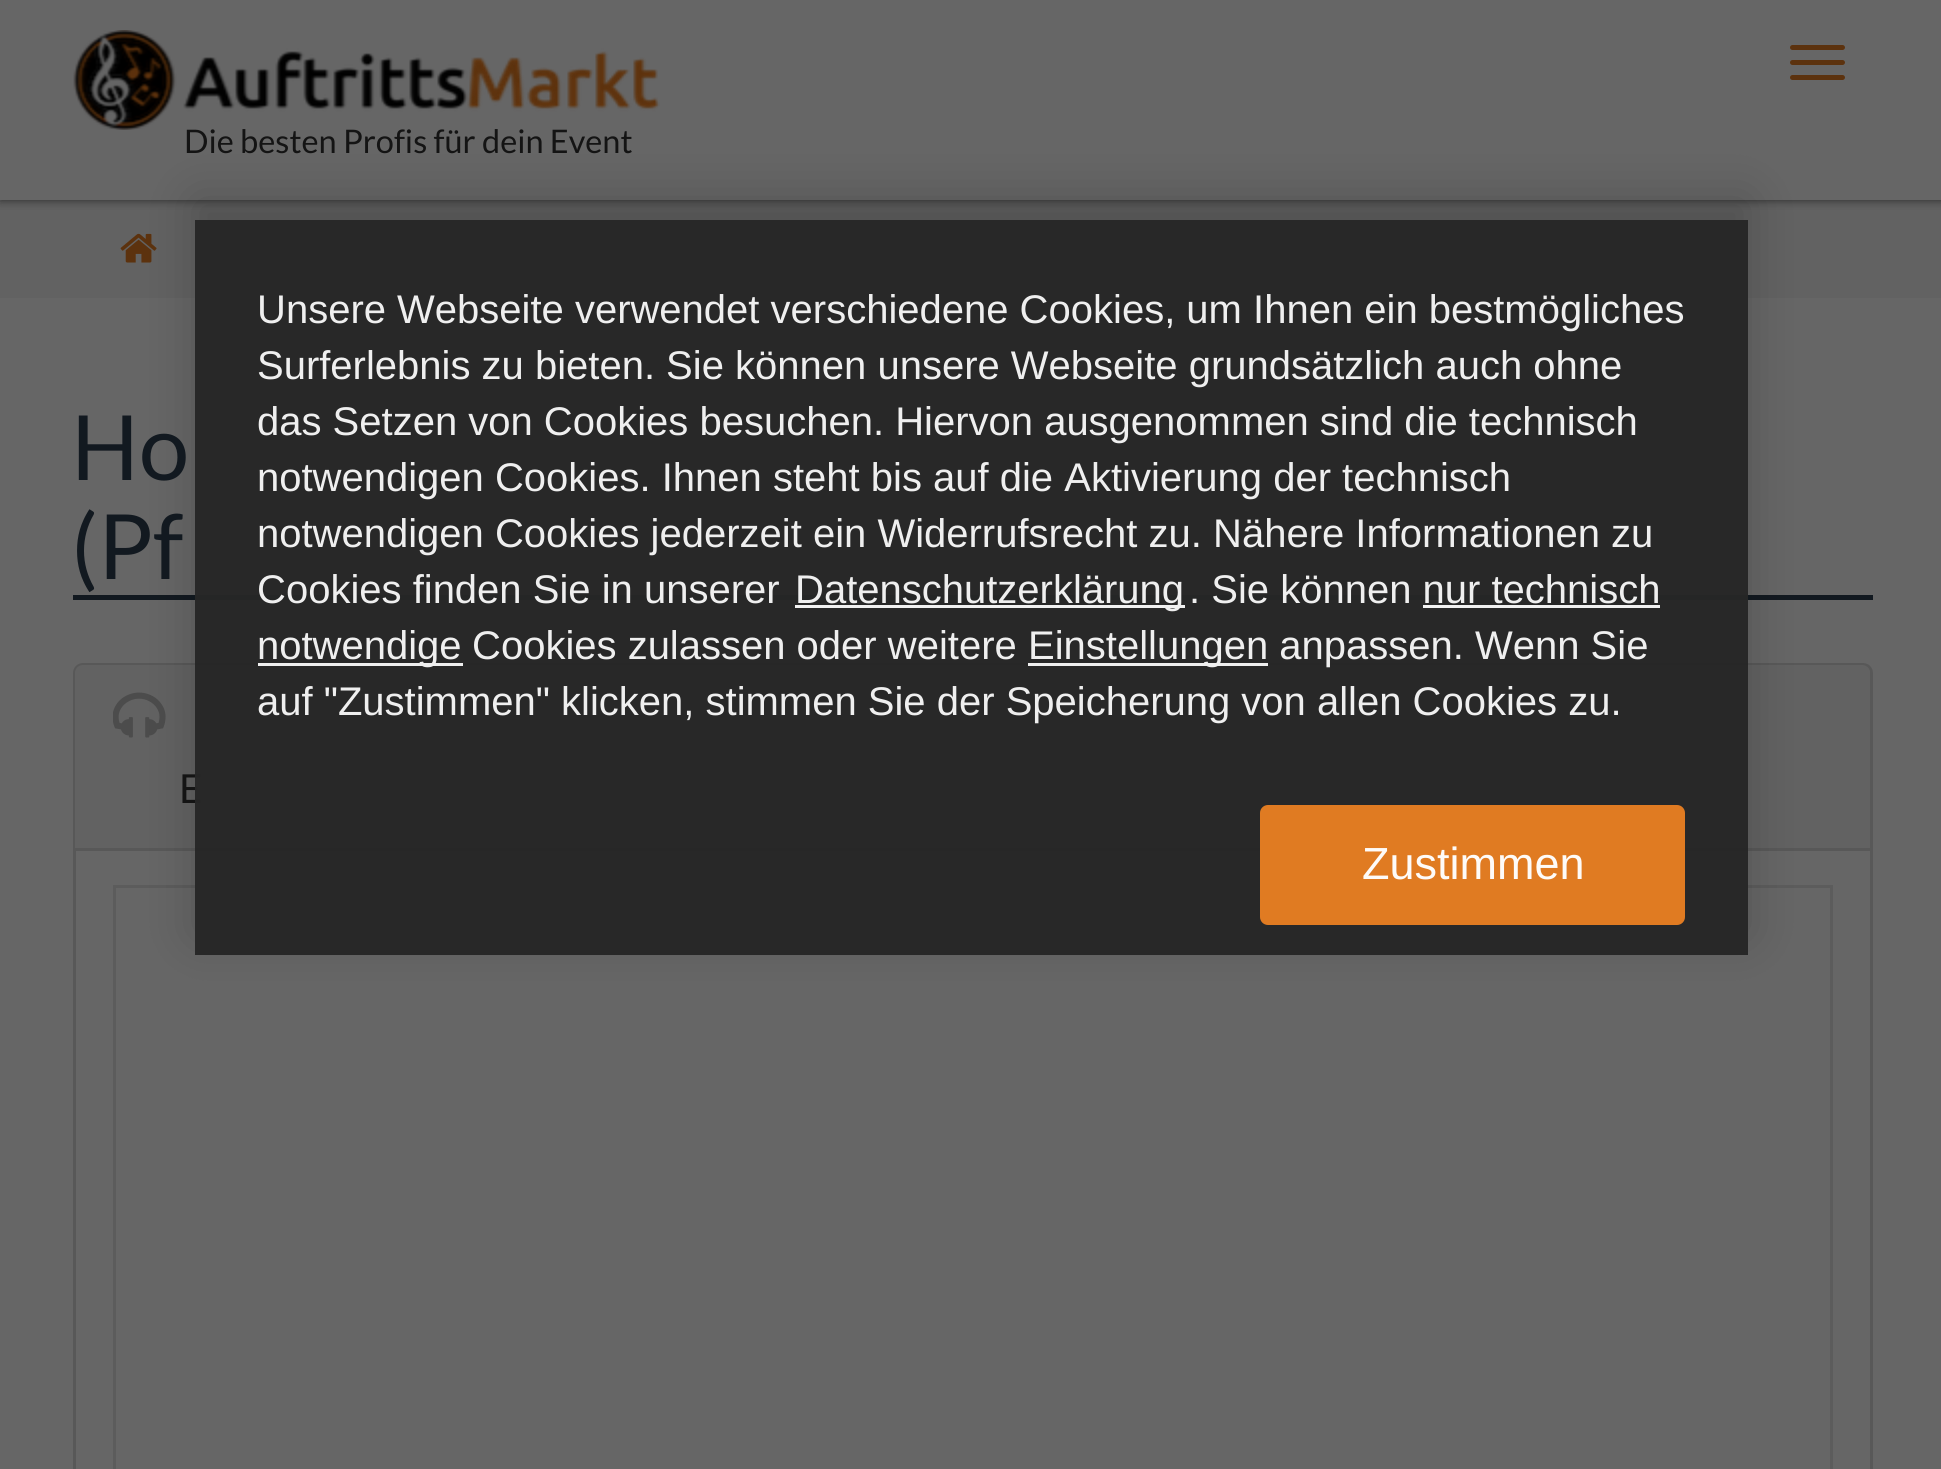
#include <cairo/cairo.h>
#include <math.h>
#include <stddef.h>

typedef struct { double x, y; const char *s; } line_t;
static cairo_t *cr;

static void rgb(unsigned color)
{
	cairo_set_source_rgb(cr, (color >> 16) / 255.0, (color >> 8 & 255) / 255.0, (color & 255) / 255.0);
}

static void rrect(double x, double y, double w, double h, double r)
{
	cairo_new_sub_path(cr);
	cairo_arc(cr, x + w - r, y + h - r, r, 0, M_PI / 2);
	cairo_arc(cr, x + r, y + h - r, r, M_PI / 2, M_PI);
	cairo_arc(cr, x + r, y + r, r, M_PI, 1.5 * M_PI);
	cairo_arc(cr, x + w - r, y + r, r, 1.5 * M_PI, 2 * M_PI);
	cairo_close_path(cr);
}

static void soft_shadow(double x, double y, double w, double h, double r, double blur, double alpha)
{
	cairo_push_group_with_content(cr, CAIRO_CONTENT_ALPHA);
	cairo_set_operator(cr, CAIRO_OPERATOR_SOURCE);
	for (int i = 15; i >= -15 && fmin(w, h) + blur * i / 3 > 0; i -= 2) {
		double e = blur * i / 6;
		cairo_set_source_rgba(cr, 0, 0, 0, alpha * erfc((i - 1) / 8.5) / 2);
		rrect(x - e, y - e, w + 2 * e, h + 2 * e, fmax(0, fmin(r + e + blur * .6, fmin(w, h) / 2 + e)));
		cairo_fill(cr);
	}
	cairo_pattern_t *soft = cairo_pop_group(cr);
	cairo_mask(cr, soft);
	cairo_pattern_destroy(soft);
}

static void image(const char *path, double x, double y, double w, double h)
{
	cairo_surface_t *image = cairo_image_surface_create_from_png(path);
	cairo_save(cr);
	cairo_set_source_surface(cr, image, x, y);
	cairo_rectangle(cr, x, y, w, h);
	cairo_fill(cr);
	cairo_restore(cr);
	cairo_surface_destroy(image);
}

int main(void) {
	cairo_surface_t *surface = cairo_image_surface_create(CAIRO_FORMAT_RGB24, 1941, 1469);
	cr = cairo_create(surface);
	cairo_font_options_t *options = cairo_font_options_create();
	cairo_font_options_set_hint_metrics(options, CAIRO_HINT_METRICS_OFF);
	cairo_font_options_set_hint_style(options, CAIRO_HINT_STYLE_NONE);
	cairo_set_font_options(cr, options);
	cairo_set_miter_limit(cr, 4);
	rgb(0x666666);
	cairo_paint(cr);
	rgb(0x626262);
	cairo_rectangle(cr, 0, 200, 1941, 98);
	cairo_fill(cr);
	cairo_save(cr);
	cairo_rectangle(cr, 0, 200, 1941, 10);
	cairo_clip(cr);
	rgb(0x141414);
	soft_shadow(0, 0, 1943, 200, 0, 5, 0.75);
	cairo_restore(cr);
	rgb(0x5c320e);
	rrect(1790, 45, 55, 5, 2.5);
	cairo_fill(cr);
	rrect(1790, 60, 55, 5, 2.5);
	cairo_fill(cr);
	rrect(1790, 75, 55, 5, 2.5);
	cairo_fill(cr);
	image("img/1.png", 73, 30, 587, 100);
	image("img/2.png", 120, 233, 37, 30);
	rgb(0x121920);
	cairo_rectangle(cr, 73, 595, 1800, 5);
	cairo_fill(cr);
	rrect(74.5, 664.5, 1797, 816, 8.5);
	rgb(0x585858);
	cairo_set_line_width(cr, 3);
	cairo_stroke(cr);
	rgb(0x626262);
	cairo_new_path(cr);
	cairo_move_to(cr, 83, 665);
	cairo_line_to(cr, 1862, 665);
	cairo_curve_to(cr, 1866.5, 665, 1870, 668.5, 1870, 673);
	cairo_line_to(cr, 1870, 850);
	cairo_line_to(cr, 75, 850);
	cairo_line_to(cr, 75, 673);
	cairo_curve_to(cr, 75, 668.5, 78.5, 665, 83, 665);
	cairo_close_path(cr);
	cairo_fill(cr);
	rgb(0x585858);
	cairo_rectangle(cr, 75, 848, 1795, 3);
	cairo_fill(cr);
	image("img/3.png", 113, 692, 53, 46);
	cairo_rectangle(cr, 114.5, 886.5, 1717, 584);
	rgb(0x5c5c5c);
	cairo_stroke(cr);
	cairo_save(cr);
	cairo_set_fill_rule(cr, CAIRO_FILL_RULE_EVEN_ODD);
	cairo_new_path(cr);
	cairo_move_to(cr, 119, 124);
	cairo_line_to(cr, 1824, 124);
	cairo_line_to(cr, 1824, 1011);
	cairo_line_to(cr, 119, 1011);
	cairo_close_path(cr);
	cairo_move_to(cr, 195, 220);
	cairo_line_to(cr, 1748, 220);
	cairo_line_to(cr, 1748, 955);
	cairo_line_to(cr, 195, 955);
	cairo_close_path(cr);
	cairo_clip(cr);
	rgb(0x000000);
	soft_shadow(195, 200, 1553, 735, 0, 25, 0.19);
	cairo_restore(cr);
	cairo_select_font_face(cr, "Lato", CAIRO_FONT_SLANT_NORMAL, CAIRO_FONT_WEIGHT_NORMAL);
	cairo_set_font_size(cr, 32.5);
	rgb(0x141414);
	cairo_move_to(cr, 184, 153);
	cairo_show_text(cr, "Die besten Profis für dein Event");
	cairo_set_font_size(cr, 90);
	rgb(0x121920);
	cairo_move_to(cr, 71, 480);
	cairo_show_text(cr, "Ho");
	cairo_move_to(cr, 71, 579);
	cairo_show_text(cr, "(Pf");
	cairo_set_font_size(cr, 40);
	rgb(0x141414);
	cairo_move_to(cr, 179, 803);
	cairo_show_text(cr, "E");
	cairo_set_source_rgba(cr, 0.149, 0.149, 0.149, 0.97);
	cairo_rectangle(cr, 195, 220, 1553, 735);
	cairo_fill(cr);
	cairo_select_font_face(cr, "Liberation Sans", CAIRO_FONT_SLANT_NORMAL, CAIRO_FONT_WEIGHT_NORMAL);
	rgb(0xefefef);
	{
		static const line_t items[] = {
			{257, 323, "Unsere Webseite verwendet verschiedene Cookies, um Ihnen ein bestmögliches"},
			{257, 379, "Surferlebnis zu bieten. Sie können unsere Webseite grundsätzlich auch ohne"},
			{257, 435, "das Setzen von Cookies besuchen. Hiervon ausgenommen sind die technisch"},
			{257, 491, "notwendigen Cookies. Ihnen steht bis auf die Aktivierung der technisch"},
			{257, 547, "notwendigen Cookies jederzeit ein Widerrufsrecht zu. Nähere Informationen zu"},
			{257, 603, "Cookies finden Sie in unserer"},
		};
		for (size_t i = 0; i < sizeof items / sizeof *items; i++) {
			cairo_move_to(cr, items[i].x, items[i].y);
			cairo_show_text(cr, items[i].s);
		}
	}
	rgb(0xf1f1f1);
	cairo_rectangle(cr, 795, 605, 390, 3);
	cairo_fill(cr);
	rgb(0xefefef);
	cairo_move_to(cr, 795, 603);
	cairo_show_text(cr, "Datenschutzerklärung");
	cairo_move_to(cr, 1189, 603);
	cairo_show_text(cr, ". Sie können nur technisch");
	rgb(0xf1f1f1);
	cairo_rectangle(cr, 1423, 605, 237, 3);
	cairo_fill(cr);
	rgb(0xefefef);
	cairo_rectangle(cr, 258, 663, 205, 3);
	cairo_fill(cr);
	cairo_move_to(cr, 257, 659);
	cairo_show_text(cr, "notwendige");
	cairo_move_to(cr, 472, 659);
	cairo_show_text(cr, "Cookies zulassen oder weitere");
	cairo_rectangle(cr, 1028, 663, 240, 3);
	cairo_fill(cr);
	cairo_move_to(cr, 1028, 659);
	cairo_show_text(cr, "Einstellungen anpassen. Wenn Sie");
	cairo_move_to(cr, 257, 715);
	cairo_show_text(cr, "auf \"Zustimmen\" klicken, stimmen Sie der Speicherung von allen Cookies zu.");
	rgb(0xe07b22);
	rrect(1260, 805, 425, 120, 8);
	cairo_fill(cr);
	cairo_set_font_size(cr, 45);
	rgb(0xfefbf8);
	cairo_move_to(cr, 1362, 879);
	cairo_show_text(cr, "Zustimmen");
	cairo_surface_write_to_png(surface, "page.png");
	cairo_font_options_destroy(options);
	cairo_destroy(cr);
	cairo_surface_destroy(surface);
	return 0;
}
